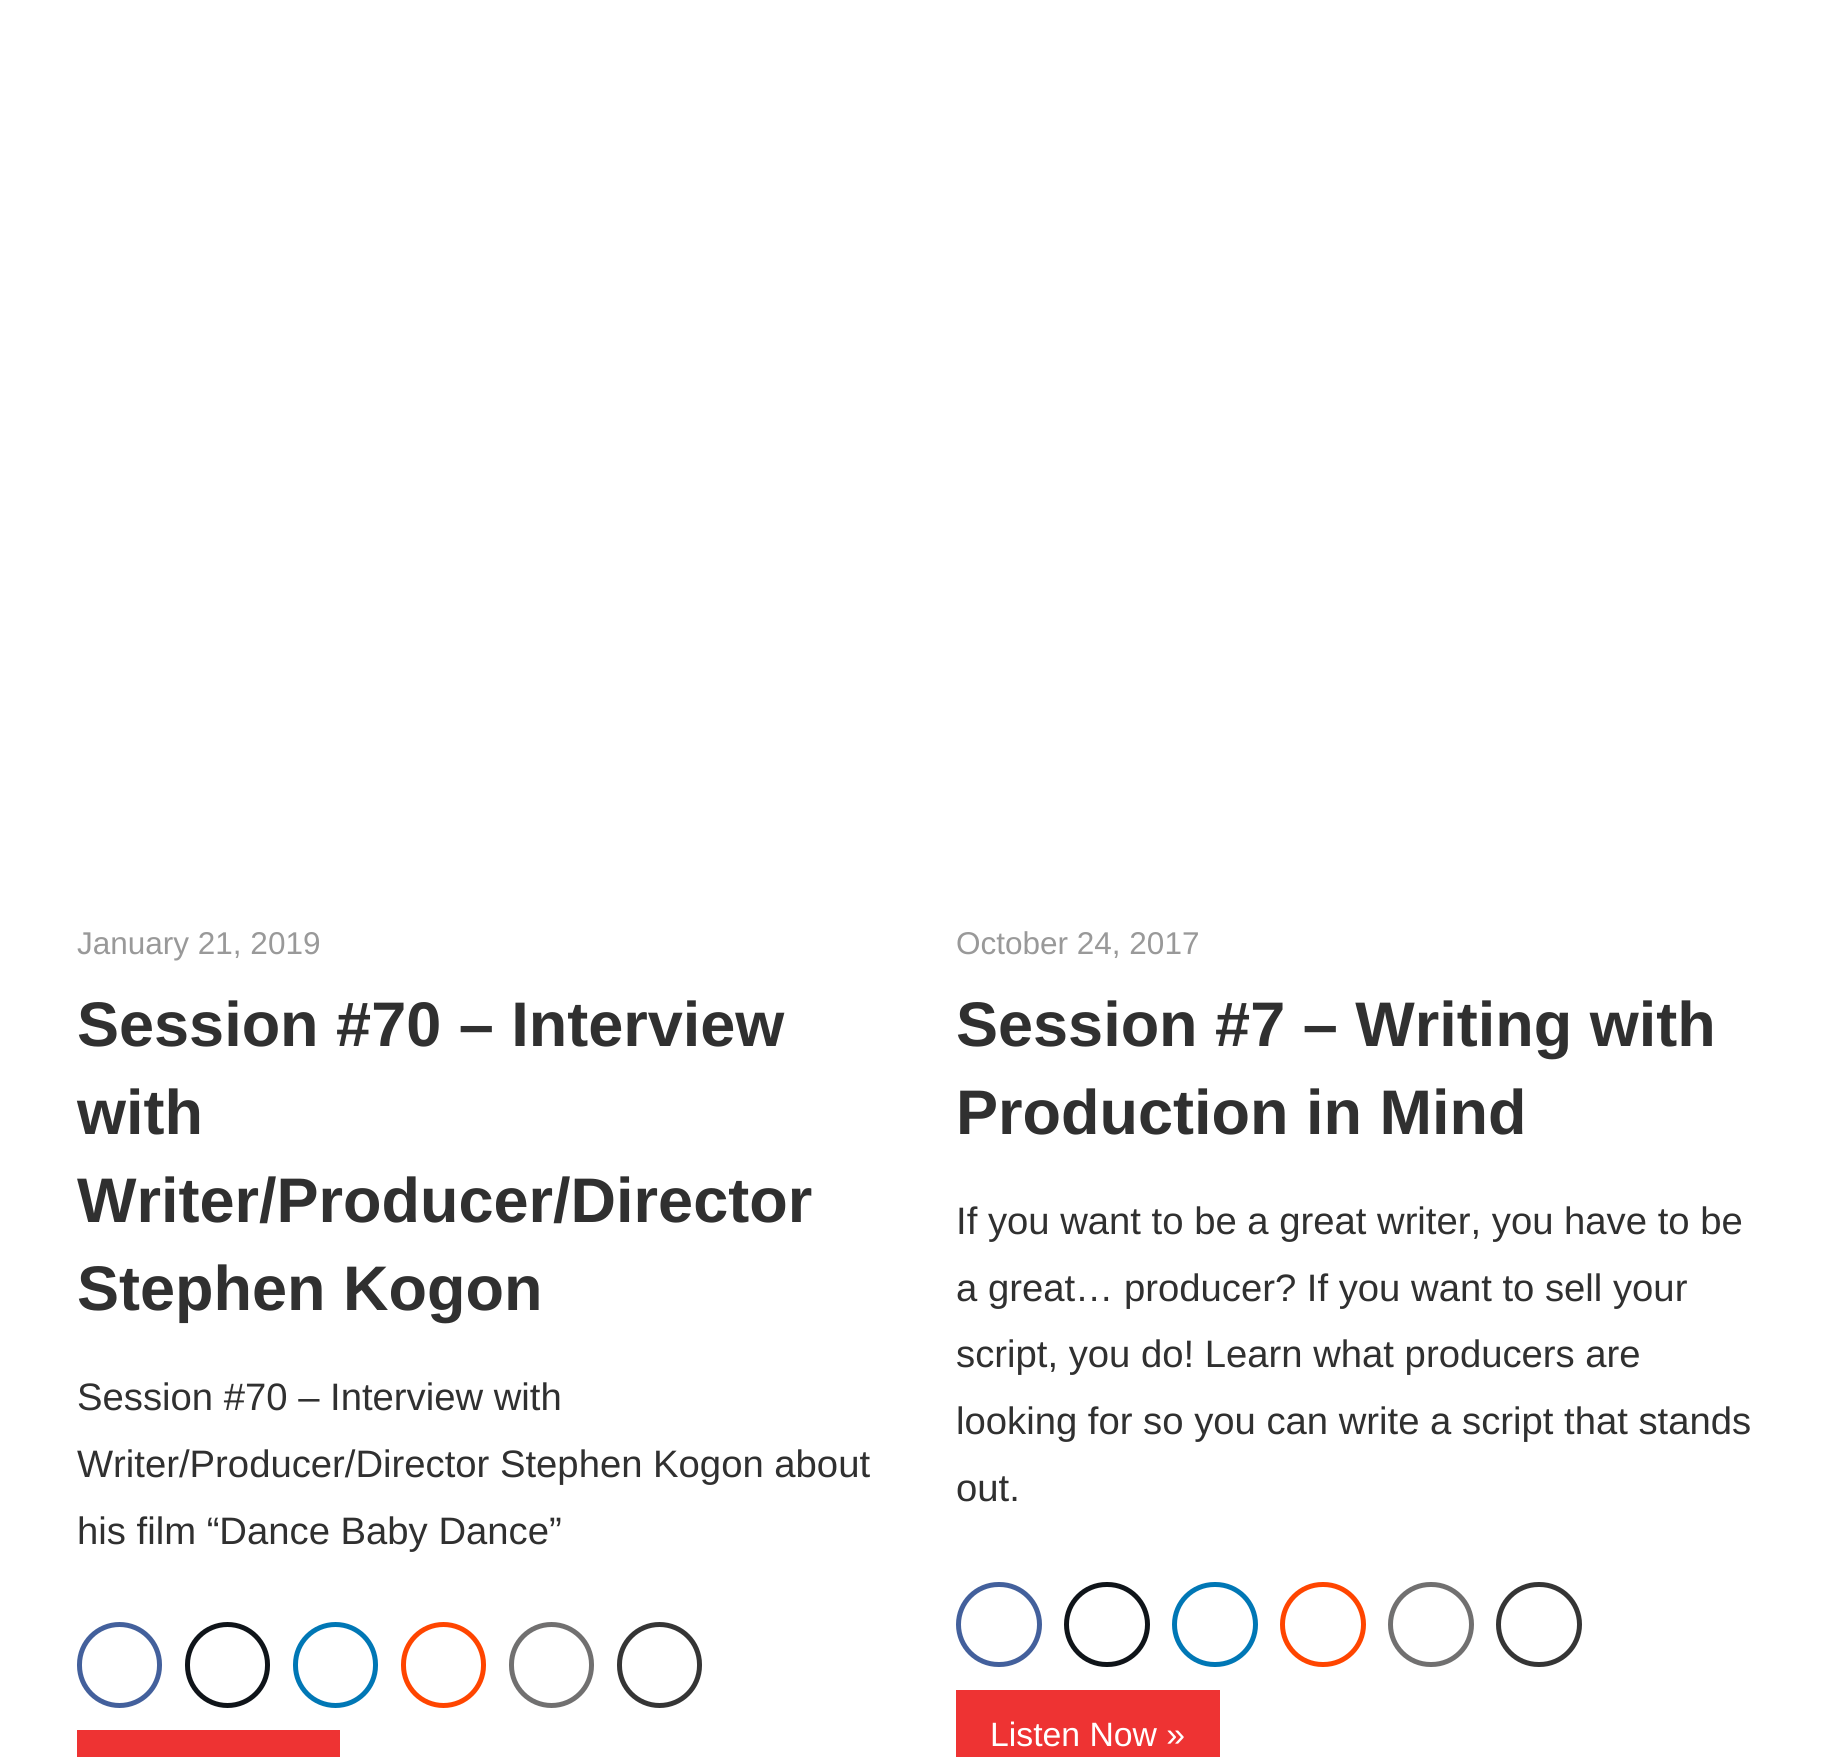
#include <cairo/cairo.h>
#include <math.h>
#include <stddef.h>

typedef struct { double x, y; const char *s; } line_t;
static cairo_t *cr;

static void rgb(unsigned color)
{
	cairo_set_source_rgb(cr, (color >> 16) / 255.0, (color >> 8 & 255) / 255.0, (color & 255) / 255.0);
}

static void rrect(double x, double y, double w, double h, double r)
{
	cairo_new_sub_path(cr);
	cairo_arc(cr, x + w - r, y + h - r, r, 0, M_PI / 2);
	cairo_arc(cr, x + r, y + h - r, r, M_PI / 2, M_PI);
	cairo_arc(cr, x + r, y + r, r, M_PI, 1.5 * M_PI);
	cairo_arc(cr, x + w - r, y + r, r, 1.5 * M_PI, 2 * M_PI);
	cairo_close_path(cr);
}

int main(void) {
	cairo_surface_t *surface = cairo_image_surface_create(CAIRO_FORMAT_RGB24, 1840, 1757);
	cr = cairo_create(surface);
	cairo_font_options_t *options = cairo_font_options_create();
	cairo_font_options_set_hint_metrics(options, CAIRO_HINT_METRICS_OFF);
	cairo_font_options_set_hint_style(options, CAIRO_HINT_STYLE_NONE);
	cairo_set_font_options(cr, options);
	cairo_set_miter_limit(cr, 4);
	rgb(0xffffff);
	cairo_paint(cr);
	rrect(79.5, 1624.5, 80, 81, 40);
	rgb(0x43609c);
	cairo_set_line_width(cr, 5);
	cairo_stroke(cr);
	rrect(187.5, 1624.5, 80, 81, 40);
	rgb(0x0f1419);
	cairo_stroke(cr);
	rrect(295.5, 1624.5, 80, 81, 40);
	rgb(0x0077b5);
	cairo_stroke(cr);
	rrect(403.5, 1624.5, 80, 81, 40);
	rgb(0xff4500);
	cairo_stroke(cr);
	rrect(511.5, 1624.5, 80, 81, 40);
	rgb(0x717070);
	cairo_stroke(cr);
	rrect(619.5, 1624.5, 80, 81, 40);
	rgb(0x353535);
	cairo_stroke(cr);
	rgb(0xee3333);
	cairo_rectangle(cr, 77, 1730, 263, 27);
	cairo_fill(cr);
	rrect(958.5, 1584.5, 81, 80, 40);
	rgb(0x43609c);
	cairo_stroke(cr);
	rrect(1066.5, 1584.5, 81, 80, 40);
	rgb(0x0f1419);
	cairo_stroke(cr);
	rrect(1174.5, 1584.5, 81, 80, 40);
	rgb(0x0077b5);
	cairo_stroke(cr);
	rrect(1282.5, 1584.5, 81, 80, 40);
	rgb(0xff4500);
	cairo_stroke(cr);
	rrect(1390.5, 1584.5, 81, 80, 40);
	rgb(0x717070);
	cairo_stroke(cr);
	rrect(1498.5, 1584.5, 81, 80, 40);
	rgb(0x353535);
	cairo_stroke(cr);
	rgb(0xee3333);
	cairo_rectangle(cr, 956, 1690, 264, 67);
	cairo_fill(cr);
	cairo_select_font_face(cr, "Liberation Sans", CAIRO_FONT_SLANT_NORMAL, CAIRO_FONT_WEIGHT_NORMAL);
	cairo_set_font_size(cr, 31.5);
	rgb(0x999999);
	cairo_move_to(cr, 77, 954);
	cairo_show_text(cr, "January 21, 2019");
	cairo_select_font_face(cr, "Liberation Sans", CAIRO_FONT_SLANT_NORMAL, CAIRO_FONT_WEIGHT_BOLD);
	cairo_set_font_size(cr, 63);
	rgb(0x303030);
	{
		static const line_t items[] = {
			{77, 1046, "Session #70 – Interview"},
			{77, 1134, "with"},
			{77, 1222, "Writer/Producer/Director"},
			{77, 1310, "Stephen Kogon"},
		};
		for (size_t i = 0; i < sizeof items / sizeof *items; i++) {
			cairo_move_to(cr, items[i].x, items[i].y);
			cairo_show_text(cr, items[i].s);
		}
	}
	cairo_select_font_face(cr, "Liberation Sans", CAIRO_FONT_SLANT_NORMAL, CAIRO_FONT_WEIGHT_NORMAL);
	cairo_set_font_size(cr, 38.25);
	{
		static const line_t items[] = {
			{77, 1410, "Session #70 – Interview with"},
			{77, 1477, "Writer/Producer/Director Stephen Kogon about"},
			{77, 1544, "his film “Dance Baby Dance”"},
		};
		for (size_t i = 0; i < sizeof items / sizeof *items; i++) {
			cairo_move_to(cr, items[i].x, items[i].y);
			cairo_show_text(cr, items[i].s);
		}
	}
	cairo_set_font_size(cr, 31.5);
	rgb(0x999999);
	cairo_move_to(cr, 956, 954);
	cairo_show_text(cr, "October 24, 2017");
	cairo_select_font_face(cr, "Liberation Sans", CAIRO_FONT_SLANT_NORMAL, CAIRO_FONT_WEIGHT_BOLD);
	cairo_set_font_size(cr, 63);
	rgb(0x303030);
	cairo_move_to(cr, 956, 1046);
	cairo_show_text(cr, "Session #7 – Writing with");
	cairo_move_to(cr, 956, 1134);
	cairo_show_text(cr, "Production in Mind");
	cairo_select_font_face(cr, "Liberation Sans", CAIRO_FONT_SLANT_NORMAL, CAIRO_FONT_WEIGHT_NORMAL);
	cairo_set_font_size(cr, 38.25);
	{
		static const line_t items[] = {
			{956, 1234, "If you want to be a great writer, you have to be"},
			{956, 1301, "a great… producer? If you want to sell your"},
			{956, 1367, "script, you do! Learn what producers are"},
			{956, 1434, "looking for so you can write a script that stands"},
			{956, 1501, "out."},
		};
		for (size_t i = 0; i < sizeof items / sizeof *items; i++) {
			cairo_move_to(cr, items[i].x, items[i].y);
			cairo_show_text(cr, items[i].s);
		}
	}
	cairo_set_font_size(cr, 33.75);
	rgb(0xffffff);
	cairo_move_to(cr, 990, 1746);
	cairo_show_text(cr, "Listen Now »");
	cairo_surface_write_to_png(surface, "page.png");
	cairo_font_options_destroy(options);
	cairo_destroy(cr);
	cairo_surface_destroy(surface);
	return 0;
}
